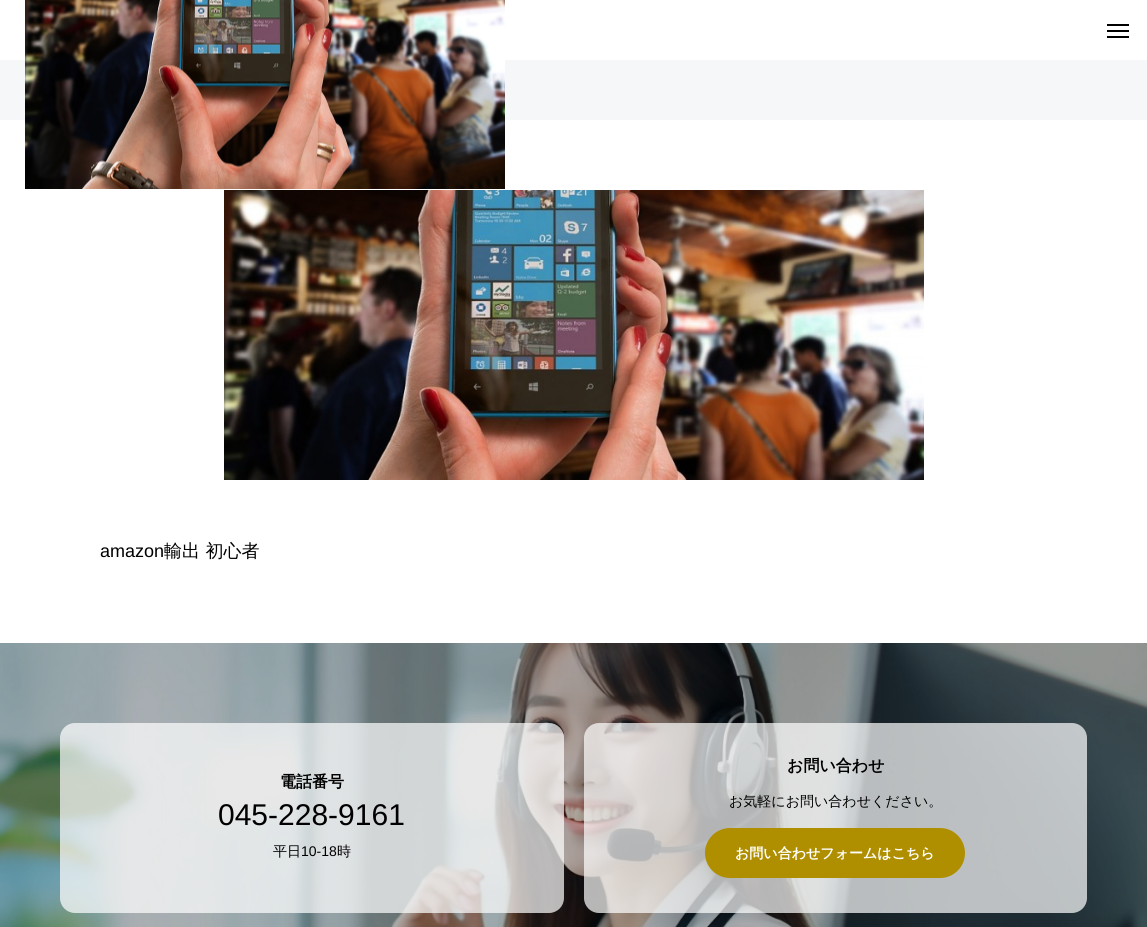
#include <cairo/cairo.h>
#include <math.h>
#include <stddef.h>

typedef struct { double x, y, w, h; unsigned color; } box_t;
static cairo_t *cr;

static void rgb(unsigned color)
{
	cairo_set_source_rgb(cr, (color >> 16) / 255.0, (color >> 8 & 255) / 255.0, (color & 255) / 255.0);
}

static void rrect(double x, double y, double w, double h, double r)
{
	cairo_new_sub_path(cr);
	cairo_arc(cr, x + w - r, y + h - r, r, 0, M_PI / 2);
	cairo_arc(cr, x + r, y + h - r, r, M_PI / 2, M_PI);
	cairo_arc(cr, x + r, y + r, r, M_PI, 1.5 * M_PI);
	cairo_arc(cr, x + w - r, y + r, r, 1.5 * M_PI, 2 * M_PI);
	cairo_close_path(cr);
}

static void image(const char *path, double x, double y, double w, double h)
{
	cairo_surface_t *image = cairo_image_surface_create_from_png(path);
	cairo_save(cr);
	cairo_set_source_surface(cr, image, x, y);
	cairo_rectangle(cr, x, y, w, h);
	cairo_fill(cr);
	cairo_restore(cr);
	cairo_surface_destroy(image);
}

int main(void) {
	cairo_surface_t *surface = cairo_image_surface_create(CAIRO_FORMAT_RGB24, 1147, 927);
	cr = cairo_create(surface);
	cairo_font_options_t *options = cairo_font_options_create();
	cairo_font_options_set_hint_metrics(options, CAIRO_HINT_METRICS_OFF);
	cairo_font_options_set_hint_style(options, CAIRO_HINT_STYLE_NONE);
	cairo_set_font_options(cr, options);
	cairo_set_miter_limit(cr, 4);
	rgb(0xffffff);
	cairo_paint(cr);
	rgb(0xf6f7f8);
	cairo_rectangle(cr, 0, 60, 1147, 60);
	cairo_fill(cr);
	image("img/1.png", 25, 0, 480, 189);
	{
		static const box_t items[] = {
			{1107, 24, 22, 2, 0x000000},
			{1107, 30, 22, 2, 0x000000},
			{1107, 36, 22, 2, 0x000000},
		};
		for (size_t i = 0; i < sizeof items / sizeof *items; i++) {
			rgb(items[i].color);
			cairo_rectangle(cr, items[i].x, items[i].y, items[i].w, items[i].h);
			cairo_fill(cr);
		}
	}
	image("img/2.png", 224, 190, 700, 290);
	image("img/3.png", 0, 643, 1147, 284);
	cairo_set_source_rgba(cr, 1, 1, 1, 0.7);
	rrect(60, 723, 504, 190, 15);
	cairo_fill(cr);
	rrect(584, 723, 503, 190, 15);
	cairo_fill(cr);
	rgb(0xaf8f00);
	rrect(705, 828, 260, 50, 25);
	cairo_fill(cr);
	cairo_select_font_face(cr, "Liberation Sans", CAIRO_FONT_SLANT_NORMAL, CAIRO_FONT_WEIGHT_NORMAL);
	cairo_set_font_size(cr, 18);
	rgb(0x000000);
	cairo_move_to(cr, 100, 557);
	cairo_show_text(cr, "amazon");
	cairo_select_font_face(cr, "WenQuanYi Zen Hei Medium", CAIRO_FONT_SLANT_NORMAL, CAIRO_FONT_WEIGHT_NORMAL);
	cairo_move_to(cr, 164, 557);
	cairo_show_text(cr, "輸出 初心者");
	cairo_select_font_face(cr, "WenQuanYi Zen Hei", CAIRO_FONT_SLANT_NORMAL, CAIRO_FONT_WEIGHT_BOLD);
	cairo_set_font_size(cr, 16);
	cairo_move_to(cr, 280, 787);
	cairo_show_text(cr, "電話番号");
	cairo_select_font_face(cr, "Liberation Sans", CAIRO_FONT_SLANT_NORMAL, CAIRO_FONT_WEIGHT_NORMAL);
	cairo_set_font_size(cr, 30);
	cairo_move_to(cr, 218, 825);
	cairo_show_text(cr, "045-228-9161");
	cairo_select_font_face(cr, "WenQuanYi Zen Hei Medium", CAIRO_FONT_SLANT_NORMAL, CAIRO_FONT_WEIGHT_NORMAL);
	cairo_set_font_size(cr, 14);
	cairo_move_to(cr, 273, 856);
	cairo_show_text(cr, "平日");
	cairo_select_font_face(cr, "Liberation Sans", CAIRO_FONT_SLANT_NORMAL, CAIRO_FONT_WEIGHT_NORMAL);
	cairo_move_to(cr, 301, 856);
	cairo_show_text(cr, "10-18");
	cairo_select_font_face(cr, "WenQuanYi Zen Hei Medium", CAIRO_FONT_SLANT_NORMAL, CAIRO_FONT_WEIGHT_NORMAL);
	cairo_move_to(cr, 337, 856);
	cairo_show_text(cr, "時");
	cairo_select_font_face(cr, "WenQuanYi Zen Hei", CAIRO_FONT_SLANT_NORMAL, CAIRO_FONT_WEIGHT_BOLD);
	cairo_set_font_size(cr, 16);
	cairo_move_to(cr, 787, 771);
	cairo_show_text(cr, "お問い合わせ");
	cairo_select_font_face(cr, "WenQuanYi Zen Hei Medium", CAIRO_FONT_SLANT_NORMAL, CAIRO_FONT_WEIGHT_NORMAL);
	cairo_set_font_size(cr, 14);
	cairo_move_to(cr, 729, 806);
	cairo_show_text(cr, "お気軽にお問い合わせください。");
	cairo_select_font_face(cr, "WenQuanYi Zen Hei", CAIRO_FONT_SLANT_NORMAL, CAIRO_FONT_WEIGHT_BOLD);
	rgb(0xffffff);
	cairo_move_to(cr, 735, 858);
	cairo_show_text(cr, "お問い合わせフォームはこちら");
	cairo_surface_write_to_png(surface, "page.png");
	cairo_font_options_destroy(options);
	cairo_destroy(cr);
	cairo_surface_destroy(surface);
	return 0;
}
